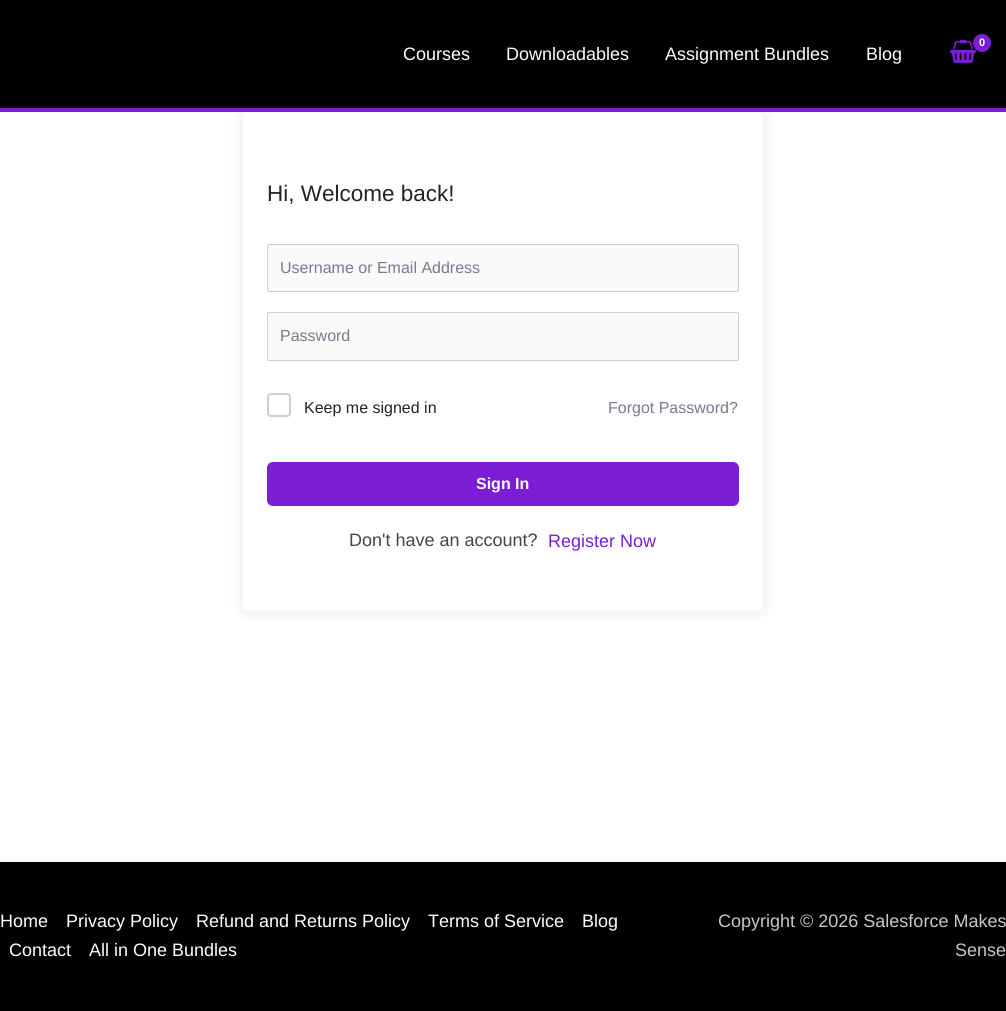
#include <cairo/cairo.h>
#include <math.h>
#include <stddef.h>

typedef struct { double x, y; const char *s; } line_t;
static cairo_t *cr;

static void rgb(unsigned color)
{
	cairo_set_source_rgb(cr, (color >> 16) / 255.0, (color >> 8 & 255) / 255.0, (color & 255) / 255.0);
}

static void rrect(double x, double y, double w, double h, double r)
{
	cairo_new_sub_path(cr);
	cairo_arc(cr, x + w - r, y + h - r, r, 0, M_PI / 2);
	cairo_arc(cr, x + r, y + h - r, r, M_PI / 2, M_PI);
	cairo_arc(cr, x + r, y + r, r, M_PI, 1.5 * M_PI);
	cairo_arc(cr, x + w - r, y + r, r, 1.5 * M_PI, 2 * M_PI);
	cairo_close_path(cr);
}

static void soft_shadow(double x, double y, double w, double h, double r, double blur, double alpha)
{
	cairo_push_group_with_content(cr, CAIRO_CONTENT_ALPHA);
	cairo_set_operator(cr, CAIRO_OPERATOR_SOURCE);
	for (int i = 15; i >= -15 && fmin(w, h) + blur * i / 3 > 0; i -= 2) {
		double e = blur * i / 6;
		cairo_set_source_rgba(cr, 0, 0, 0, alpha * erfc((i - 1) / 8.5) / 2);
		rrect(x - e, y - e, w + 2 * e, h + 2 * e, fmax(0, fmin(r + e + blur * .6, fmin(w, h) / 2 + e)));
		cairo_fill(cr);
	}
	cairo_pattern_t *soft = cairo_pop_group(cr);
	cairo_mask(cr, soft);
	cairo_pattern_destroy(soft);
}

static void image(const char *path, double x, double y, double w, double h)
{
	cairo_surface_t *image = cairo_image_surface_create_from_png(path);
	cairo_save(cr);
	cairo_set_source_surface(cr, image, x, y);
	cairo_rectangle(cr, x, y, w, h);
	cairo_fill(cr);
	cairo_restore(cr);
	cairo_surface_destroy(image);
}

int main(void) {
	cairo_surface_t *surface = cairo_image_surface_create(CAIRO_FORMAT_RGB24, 1006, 1011);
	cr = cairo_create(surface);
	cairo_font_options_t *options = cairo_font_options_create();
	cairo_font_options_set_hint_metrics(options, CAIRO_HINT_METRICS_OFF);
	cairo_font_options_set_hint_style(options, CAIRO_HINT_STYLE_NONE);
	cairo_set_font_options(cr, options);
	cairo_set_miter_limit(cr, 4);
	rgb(0xffffff);
	cairo_paint(cr);
	cairo_save(cr);
	cairo_set_fill_rule(cr, CAIRO_FILL_RULE_EVEN_ODD);
	cairo_new_path(cr);
	cairo_move_to(cr, 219, 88);
	cairo_line_to(cr, 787, 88);
	cairo_line_to(cr, 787, 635);
	cairo_line_to(cr, 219, 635);
	cairo_close_path(cr);
	cairo_move_to(cr, 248, 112);
	cairo_line_to(cr, 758, 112);
	cairo_curve_to(cr, 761, 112, 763, 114, 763, 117);
	cairo_line_to(cr, 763, 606);
	cairo_curve_to(cr, 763, 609, 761, 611, 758, 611);
	cairo_line_to(cr, 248, 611);
	cairo_curve_to(cr, 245, 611, 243, 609, 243, 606);
	cairo_line_to(cr, 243, 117);
	cairo_curve_to(cr, 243, 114, 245, 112, 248, 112);
	cairo_close_path(cr);
	cairo_clip(cr);
	rgb(0x000000);
	soft_shadow(243, 112, 520, 499, 5, 7.5, 0.1);
	cairo_restore(cr);
	rgb(0x000000);
	cairo_rectangle(cr, 0, 0, 1006, 108);
	cairo_fill(cr);
	rgb(0x7a1dd4);
	cairo_rectangle(cr, 0, 108, 1006, 4);
	cairo_fill(cr);
	image("img/1.png", 950, 40, 27, 23);
	rgb(0x000000);
	soft_shadow(974, 35, 18, 18, 9, 1.5, 0.3);
	rgb(0x7a1dd4);
	cairo_arc(cr, 982, 43, 9, 0, 2 * M_PI);
	cairo_fill(cr);
	rgb(0xfafafa);
	rrect(267.5, 244.5, 471, 47, 1.5);
	cairo_fill_preserve(cr);
	rgb(0xcdcfd5);
	cairo_set_line_width(cr, 1);
	cairo_stroke(cr);
	rgb(0xfafafa);
	rrect(267.5, 312.5, 471, 48, 1.5);
	cairo_fill_preserve(cr);
	rgb(0xcdcfd5);
	cairo_stroke(cr);
	rrect(268, 394, 22, 22, 3);
	cairo_set_line_width(cr, 2);
	cairo_stroke(cr);
	rgb(0x7a1dd4);
	rrect(267.5, 462.5, 471, 43, 5.5);
	cairo_fill_preserve(cr);
	cairo_set_line_width(cr, 1);
	cairo_stroke(cr);
	rgb(0x000000);
	cairo_rectangle(cr, 0, 862, 1006, 149);
	cairo_fill(cr);
	rgb(0xf2f5f7);
	cairo_rectangle(cr, 0, 861, 1006, 1);
	cairo_fill(cr);
	cairo_select_font_face(cr, "Liberation Sans", CAIRO_FONT_SLANT_NORMAL, CAIRO_FONT_WEIGHT_BOLD);
	cairo_set_font_size(cr, 11);
	rgb(0xffffff);
	cairo_move_to(cr, 979, 46);
	cairo_show_text(cr, "0");
	cairo_select_font_face(cr, "Liberation Sans", CAIRO_FONT_SLANT_NORMAL, CAIRO_FONT_WEIGHT_NORMAL);
	cairo_set_font_size(cr, 18);
	{
		static const line_t items[] = {
			{403, 60, "Courses"},
			{506, 60, "Downloadables"},
			{665, 60, "Assignment Bundles"},
			{866, 60, "Blog"},
		};
		for (size_t i = 0; i < sizeof items / sizeof *items; i++) {
			cairo_move_to(cr, items[i].x, items[i].y);
			cairo_show_text(cr, items[i].s);
		}
	}
	cairo_set_font_size(cr, 22.5);
	rgb(0x212327);
	cairo_move_to(cr, 267, 201);
	cairo_show_text(cr, "Hi, Welcome back!");
	cairo_set_font_size(cr, 16);
	rgb(0x757c8e);
	cairo_move_to(cr, 280, 273);
	cairo_show_text(cr, "Username or Email Address");
	cairo_move_to(cr, 280, 341);
	cairo_show_text(cr, "Password");
	rgb(0x212327);
	cairo_move_to(cr, 304, 413);
	cairo_show_text(cr, "Keep me signed in");
	rgb(0x757c8e);
	cairo_move_to(cr, 608, 413);
	cairo_show_text(cr, "Forgot Password?");
	cairo_select_font_face(cr, "Liberation Sans", CAIRO_FONT_SLANT_NORMAL, CAIRO_FONT_WEIGHT_BOLD);
	rgb(0xffffff);
	cairo_move_to(cr, 476, 489);
	cairo_show_text(cr, "Sign In");
	cairo_select_font_face(cr, "Liberation Sans", CAIRO_FONT_SLANT_NORMAL, CAIRO_FONT_WEIGHT_NORMAL);
	cairo_set_font_size(cr, 18);
	rgb(0x41454f);
	cairo_move_to(cr, 349, 546);
	cairo_show_text(cr, "Don't have an account?");
	rgb(0x7a1dd4);
	cairo_move_to(cr, 548, 547);
	cairo_show_text(cr, "Register Now");
	rgb(0xffffff);
	{
		static const line_t items[] = {
			{0, 927, "Home"},
			{66, 927, "Privacy Policy"},
			{196, 927, "Refund and Returns Policy"},
			{428, 927, "Terms of Service"},
			{582, 927, "Blog"},
			{9, 956, "Contact"},
			{89, 956, "All in One Bundles"},
		};
		for (size_t i = 0; i < sizeof items / sizeof *items; i++) {
			cairo_move_to(cr, items[i].x, items[i].y);
			cairo_show_text(cr, items[i].s);
		}
	}
	rgb(0xc8c8c8);
	cairo_move_to(cr, 718, 927);
	cairo_show_text(cr, "Copyright © 2026 Salesforce Makes");
	cairo_move_to(cr, 955, 956);
	cairo_show_text(cr, "Sense");
	cairo_surface_write_to_png(surface, "page.png");
	cairo_font_options_destroy(options);
	cairo_destroy(cr);
	cairo_surface_destroy(surface);
	return 0;
}
